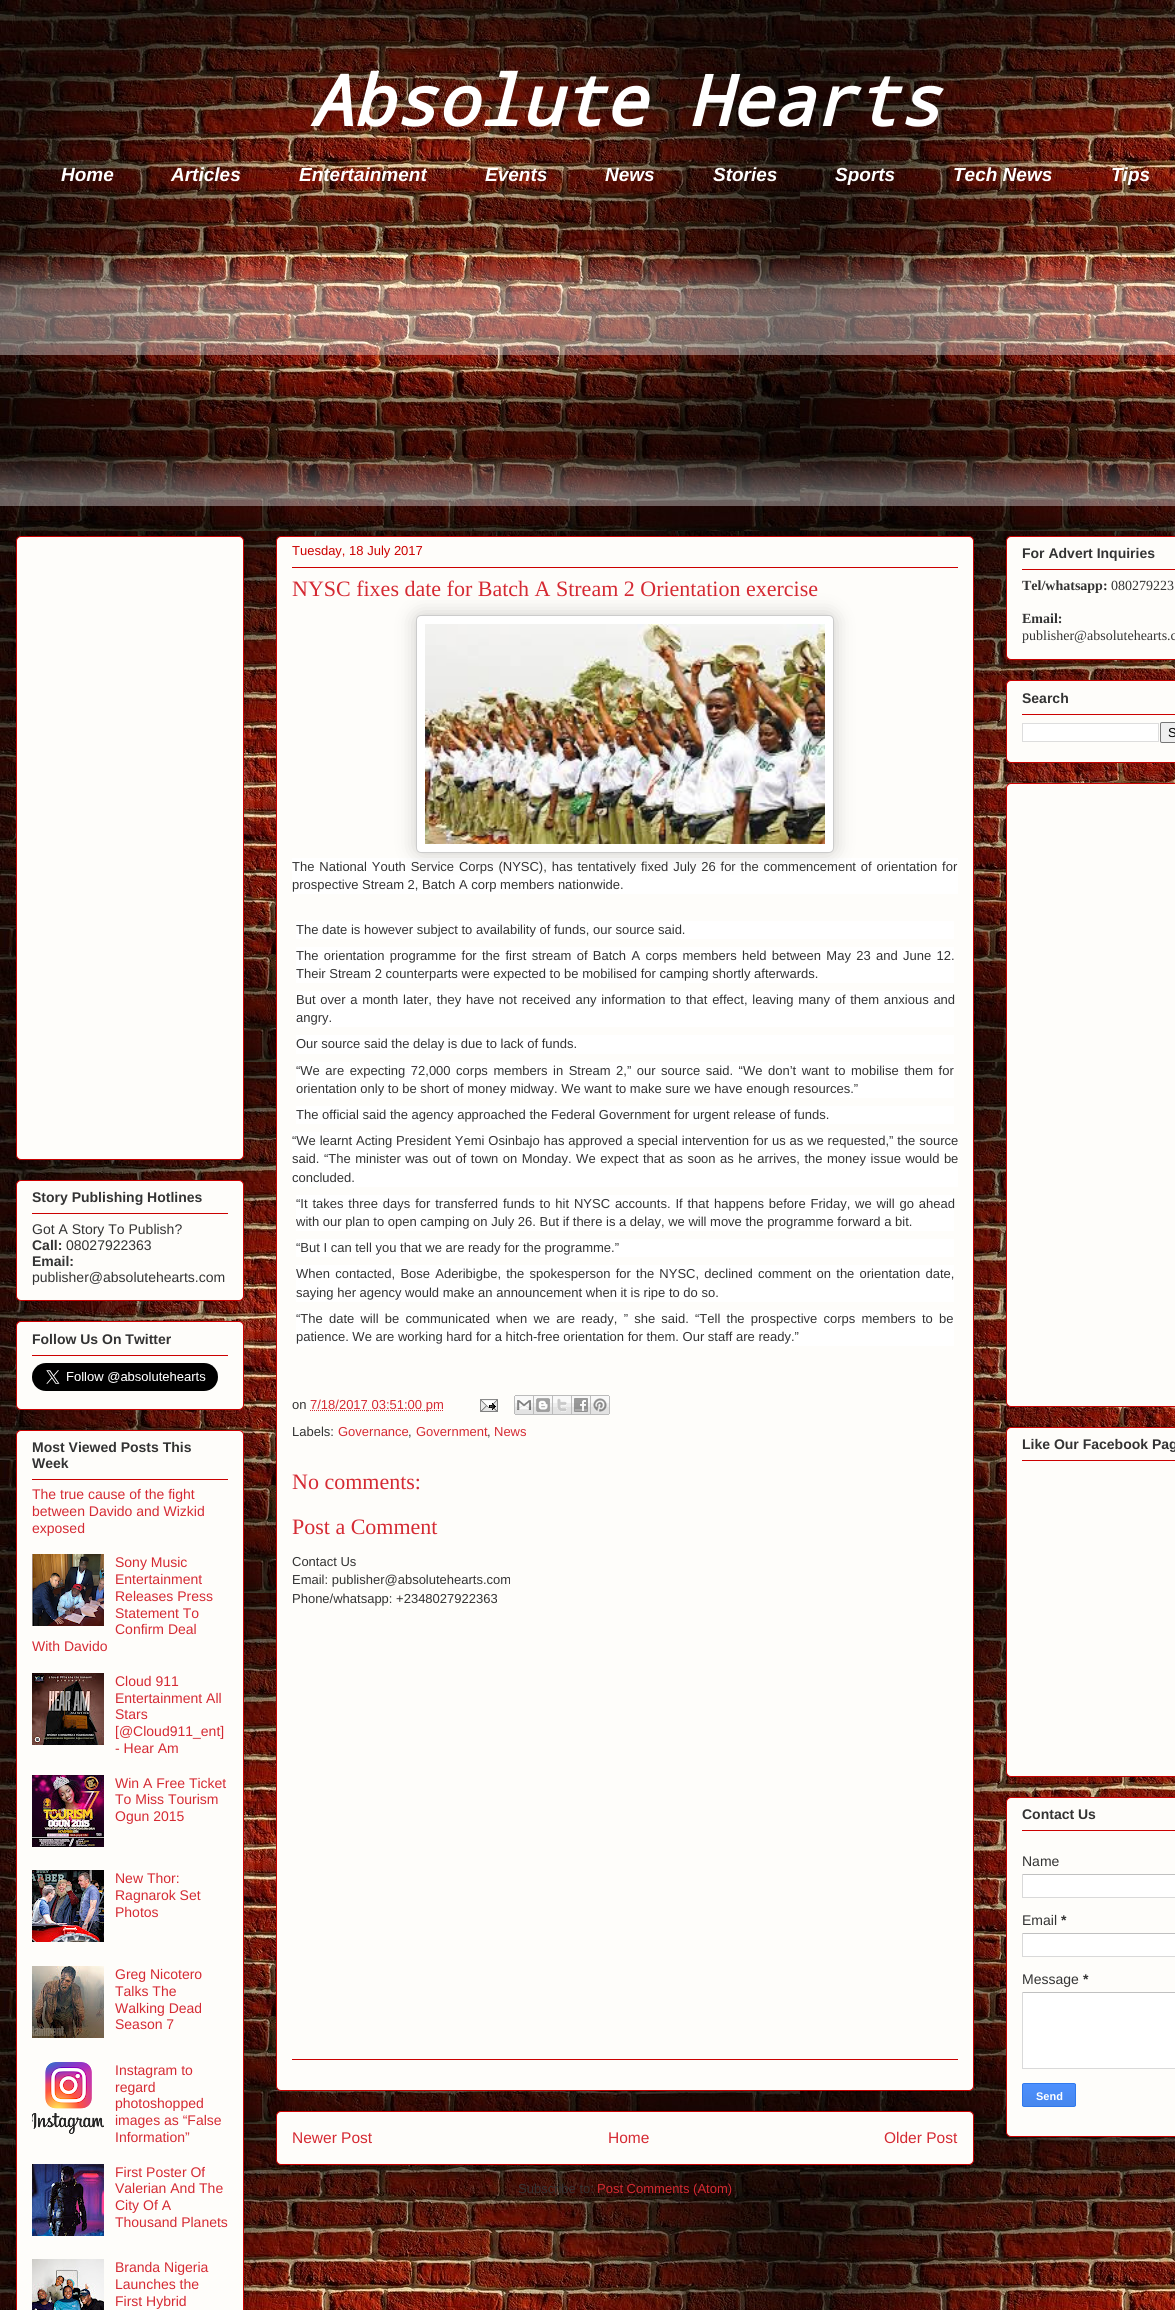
#include <cairo/cairo.h>
#include <math.h>
#include <stddef.h>

typedef struct { double x, y; const char *s; } line_t;
typedef struct { double x, y, w, h; unsigned color; } box_t;
static cairo_t *cr;

static void rgb(unsigned color)
{
	cairo_set_source_rgb(cr, (color >> 16) / 255.0, (color >> 8 & 255) / 255.0, (color & 255) / 255.0);
}

static void tracked(double x, double y, const char *s, double letter, double word)
{
	cairo_move_to(cr, x, y);
	while (*s) {
		char ch[5] = {0};
		int n = 0;
		do ch[n++] = *s++; while ((*s & 0xC0) == 0x80);
		cairo_show_text(cr, ch);
		cairo_rel_move_to(cr, letter + word * (*ch == ' '), 0);
	}
}

static void rrect(double x, double y, double w, double h, double r)
{
	cairo_new_sub_path(cr);
	cairo_arc(cr, x + w - r, y + h - r, r, 0, M_PI / 2);
	cairo_arc(cr, x + r, y + h - r, r, M_PI / 2, M_PI);
	cairo_arc(cr, x + r, y + r, r, M_PI, 1.5 * M_PI);
	cairo_arc(cr, x + w - r, y + r, r, 1.5 * M_PI, 2 * M_PI);
	cairo_close_path(cr);
}

static void soft_shadow(double x, double y, double w, double h, double r, double blur, double alpha)
{
	cairo_push_group_with_content(cr, CAIRO_CONTENT_ALPHA);
	cairo_set_operator(cr, CAIRO_OPERATOR_SOURCE);
	for (int i = 15; i >= -15 && fmin(w, h) + blur * i / 3 > 0; i -= 2) {
		double e = blur * i / 6;
		cairo_set_source_rgba(cr, 0, 0, 0, alpha * erfc((i - 1) / 8.5) / 2);
		rrect(x - e, y - e, w + 2 * e, h + 2 * e, fmax(0, fmin(r + e + blur * .6, fmin(w, h) / 2 + e)));
		cairo_fill(cr);
	}
	cairo_pattern_t *soft = cairo_pop_group(cr);
	cairo_mask(cr, soft);
	cairo_pattern_destroy(soft);
}

static void image(const char *path, double x, double y, double w, double h)
{
	cairo_surface_t *image = cairo_image_surface_create_from_png(path);
	cairo_save(cr);
	cairo_set_source_surface(cr, image, x, y);
	cairo_rectangle(cr, x, y, w, h);
	cairo_fill(cr);
	cairo_restore(cr);
	cairo_surface_destroy(image);
}

int main(void) {
	cairo_surface_t *surface = cairo_image_surface_create(CAIRO_FORMAT_RGB24, 1175, 2310);
	cr = cairo_create(surface);
	cairo_font_options_t *options = cairo_font_options_create();
	cairo_font_options_set_hint_metrics(options, CAIRO_HINT_METRICS_OFF);
	cairo_font_options_set_hint_style(options, CAIRO_HINT_STYLE_NONE);
	cairo_set_font_options(cr, options);
	cairo_set_miter_limit(cr, 4);
	cairo_pattern_t *gradient;
	rgb(0xffffff);
	cairo_paint(cr);
	image("img/1.png", 0, 0, 1175, 2310);
	image("img/2.png", 0, 161, 1175, 345);
	rgb(0x000000);
	soft_shadow(16, 536, 228, 624, 5, 10, 0.2);
	rgb(0xfefdfa);
	rrect(16.5, 536.5, 227, 623, 4.5);
	cairo_fill_preserve(cr);
	rgb(0xcc0000);
	cairo_set_line_width(cr, 1);
	cairo_stroke(cr);
	rgb(0x000000);
	soft_shadow(16, 1180, 228, 121, 5, 10, 0.2);
	rgb(0xfefdfa);
	rrect(16.5, 1180.5, 227, 120, 4.5);
	cairo_fill_preserve(cr);
	rgb(0xcc0000);
	cairo_stroke(cr);
	cairo_rectangle(cr, 32, 1213, 196, 1);
	cairo_fill(cr);
	rgb(0x000000);
	soft_shadow(16, 1321, 228, 89, 5, 10, 0.2);
	rgb(0xfefdfa);
	rrect(16.5, 1321.5, 227, 88, 4.5);
	cairo_fill_preserve(cr);
	rgb(0xcc0000);
	cairo_stroke(cr);
	cairo_rectangle(cr, 32, 1355, 196, 1);
	cairo_fill(cr);
	image("img/3.png", 32, 1363, 186, 28);
	rgb(0x000000);
	soft_shadow(16, 1430, 228, 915, 5, 10, 0.2);
	rgb(0xfefdfa);
	rrect(16.5, 1430.5, 227, 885, 4.5);
	cairo_fill_preserve(cr);
	rgb(0xcc0000);
	cairo_stroke(cr);
	cairo_rectangle(cr, 32, 1479, 196, 1);
	cairo_fill(cr);
	image("img/4.png", 32, 1554, 72, 72);
	image("img/5.png", 32, 1673, 72, 72);
	image("img/6.png", 32, 1775, 72, 72);
	image("img/7.png", 32, 1870, 72, 72);
	image("img/8.png", 32, 1966, 72, 72);
	image("img/9.png", 32, 2062, 72, 72);
	image("img/10.png", 32, 2164, 72, 72);
	image("img/11.png", 32, 2259, 72, 51);
	rgb(0x000000);
	soft_shadow(276, 2111, 698, 54, 5, 10, 0.2);
	rgb(0xfefdfa);
	rrect(276.5, 2111.5, 697, 53, 4.5);
	cairo_fill_preserve(cr);
	rgb(0xcc0000);
	cairo_stroke(cr);
	rgb(0x000000);
	soft_shadow(276, 536, 698, 1555, 5, 10, 0.2);
	rgb(0xfefdfa);
	rrect(276.5, 536.5, 697, 1554, 4.5);
	cairo_fill_preserve(cr);
	rgb(0xcc0000);
	cairo_stroke(cr);
	cairo_rectangle(cr, 292, 567, 666, 1);
	cairo_fill(cr);
	rgb(0xffffff);
	cairo_rectangle(cr, 292, 858, 666, 36);
	cairo_fill(cr);
	rgb(0x000000);
	soft_shadow(416, 615, 418, 238, 5, 10, 0.2);
	rgb(0xffffff);
	rrect(416.5, 615.5, 417, 237, 4.5);
	cairo_fill_preserve(cr);
	rgb(0xcccccc);
	cairo_stroke(cr);
	image("img/12.png", 425, 624, 400, 220);
	{
		static const box_t items[] = {
			{296, 921, 658, 18, 0xffffff},
			{296, 947, 658, 36, 0xffffff},
			{296, 991, 658, 36, 0xffffff},
			{296, 1035, 658, 19, 0xffffff},
			{296, 1062, 658, 36, 0xffffff},
			{296, 1106, 658, 18, 0xffffff},
			{292, 1132, 666, 55, 0xffffff},
			{296, 1195, 658, 36, 0xffffff},
			{296, 1239, 658, 18, 0xffffff},
			{296, 1265, 658, 37, 0xffffff},
			{296, 1310, 658, 36, 0xffffff},
		};
		for (size_t i = 0; i < sizeof items / sizeof *items; i++) {
			rgb(items[i].color);
			cairo_rectangle(cr, items[i].x, items[i].y, items[i].w, items[i].h);
			cairo_fill(cr);
		}
	}
	cairo_new_path(cr);
	cairo_move_to(cr, 310, 1410.5);
	cairo_line_to(cr, 444, 1410.5);
	rgb(0xd52a33);
	cairo_set_dash(cr, (double[]){1, 1}, 2, 0);
	cairo_stroke(cr);
	image("img/13.png", 480, 1399, 18, 13);
	image("img/14.png", 514, 1395, 20, 20);
	image("img/15.png", 534, 1395, 19, 20);
	image("img/16.png", 553, 1395, 19, 20);
	image("img/17.png", 572, 1395, 19, 20);
	image("img/18.png", 591, 1395, 19, 20);
	rgb(0xcc0000);
	cairo_rectangle(cr, 292, 2059, 666, 1);
	cairo_fill(cr);
	rgb(0x000000);
	soft_shadow(1006, 536, 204, 124, 5, 10, 0.2);
	rgb(0xfefdfa);
	rrect(1006.5, 536.5, 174, 123, 4.5);
	cairo_fill_preserve(cr);
	rgb(0xcc0000);
	cairo_set_dash(cr, NULL, 0, 0);
	cairo_stroke(cr);
	cairo_rectangle(cr, 1022, 569, 153, 1);
	cairo_fill(cr);
	rgb(0x000000);
	soft_shadow(1006, 680, 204, 83, 5, 10, 0.2);
	rgb(0xfefdfa);
	rrect(1006.5, 680.5, 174, 82, 4.5);
	cairo_fill_preserve(cr);
	rgb(0xcc0000);
	cairo_stroke(cr);
	cairo_rectangle(cr, 1022, 714, 153, 1);
	cairo_fill(cr);
	rgb(0xffffff);
	cairo_rectangle(cr, 1022.5, 723.5, 136, 18);
	cairo_fill_preserve(cr);
	rgb(0xdddddd);
	cairo_stroke(cr);
	rgb(0xefefef);
	rrect(1160.5, 722.5, 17, 20, 1.5);
	cairo_fill_preserve(cr);
	rgb(0x767676);
	cairo_stroke(cr);
	rgb(0x000000);
	soft_shadow(1006, 783, 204, 624, 5, 10, 0.2);
	rgb(0xfefdfa);
	rrect(1006.5, 783.5, 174, 623, 4.5);
	cairo_fill_preserve(cr);
	rgb(0xcc0000);
	cairo_stroke(cr);
	rgb(0x000000);
	soft_shadow(1006, 1427, 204, 350, 5, 10, 0.2);
	rgb(0xfefdfa);
	rrect(1006.5, 1427.5, 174, 349, 4.5);
	cairo_fill_preserve(cr);
	rgb(0xcc0000);
	cairo_stroke(cr);
	cairo_rectangle(cr, 1022, 1460, 153, 1);
	cairo_fill(cr);
	rgb(0x000000);
	soft_shadow(1006, 1797, 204, 340, 5, 10, 0.2);
	rgb(0xfefdfa);
	rrect(1006.5, 1797.5, 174, 339, 4.5);
	cairo_fill_preserve(cr);
	rgb(0xcc0000);
	cairo_stroke(cr);
	{
		static const box_t items[] = {
			{1022, 1830, 153, 1, 0xcc0000},
			{1023, 1875, 152, 22, 0xffffff},
			{1022, 1874, 153, 1, 0xc0c0c0},
			{1022, 1897, 153, 1, 0xd9d9d9},
			{1022, 1874, 1, 24, 0xd9d9d9},
			{1023, 1934, 152, 22, 0xffffff},
			{1022, 1933, 153, 1, 0xc0c0c0},
			{1022, 1956, 153, 1, 0xd9d9d9},
			{1022, 1933, 1, 24, 0xd9d9d9},
			{1023, 1993, 152, 75, 0xffffff},
			{1022, 1992, 153, 1, 0xc0c0c0},
			{1022, 2068, 153, 1, 0xd9d9d9},
			{1022, 1992, 1, 77, 0xd9d9d9},
		};
		for (size_t i = 0; i < sizeof items / sizeof *items; i++) {
			rgb(items[i].color);
			cairo_rectangle(cr, items[i].x, items[i].y, items[i].w, items[i].h);
			cairo_fill(cr);
		}
	}
	cairo_save(cr);
	rrect(1022, 2083, 54, 24, 2);
	cairo_clip(cr);
	gradient = cairo_pattern_create_linear(1049, 2084, 1049, 2106);
	cairo_pattern_add_color_stop_rgba(gradient, 0, 0.302, 0.565, 0.996, 1);
	cairo_pattern_add_color_stop_rgba(gradient, 1, 0.278, 0.529, 0.929, 1);
	cairo_set_source(cr, gradient);
	cairo_pattern_destroy(gradient);
	cairo_rectangle(cr, 1022, 2084, 54, 22);
	cairo_fill(cr);
	cairo_restore(cr);
	rrect(1022.5, 2083.5, 53, 23, 1.5);
	rgb(0x3079ed);
	cairo_stroke(cr);
	cairo_select_font_face(cr, "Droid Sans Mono", CAIRO_FONT_SLANT_ITALIC, CAIRO_FONT_WEIGHT_BOLD);
	cairo_set_font_size(cr, 70);
	rgb(0xffffff);
	cairo_move_to(cr, 310, 126);
	cairo_show_text(cr, "Absolute Hearts");
	cairo_select_font_face(cr, "Liberation Sans", CAIRO_FONT_SLANT_ITALIC, CAIRO_FONT_WEIGHT_BOLD);
	cairo_set_font_size(cr, 19);
	{
		static const line_t items[] = {
			{61, 181, "Home"},
			{171, 181, "Articles"},
			{299, 181, "Entertainment"},
			{485, 181, "Events"},
			{605, 181, "News"},
			{713, 181, "Stories"},
			{835, 181, "Sports"},
			{953, 181, "Tech News"},
			{1111, 181, "Tips"},
		};
		for (size_t i = 0; i < sizeof items / sizeof *items; i++) {
			cairo_move_to(cr, items[i].x, items[i].y);
			cairo_show_text(cr, items[i].s);
		}
	}
	cairo_select_font_face(cr, "Liberation Sans", CAIRO_FONT_SLANT_NORMAL, CAIRO_FONT_WEIGHT_BOLD);
	cairo_set_font_size(cr, 14);
	rgb(0x333333);
	cairo_move_to(cr, 32, 1202);
	cairo_show_text(cr, "Story Publishing Hotlines");
	cairo_select_font_face(cr, "Liberation Sans", CAIRO_FONT_SLANT_NORMAL, CAIRO_FONT_WEIGHT_NORMAL);
	cairo_move_to(cr, 32, 1234);
	cairo_show_text(cr, "Got A Story To Publish?");
	cairo_select_font_face(cr, "Liberation Sans", CAIRO_FONT_SLANT_NORMAL, CAIRO_FONT_WEIGHT_BOLD);
	cairo_move_to(cr, 32, 1250);
	cairo_show_text(cr, "Call:");
	cairo_select_font_face(cr, "Liberation Sans", CAIRO_FONT_SLANT_NORMAL, CAIRO_FONT_WEIGHT_NORMAL);
	cairo_move_to(cr, 66, 1250);
	cairo_show_text(cr, "08027922363");
	cairo_select_font_face(cr, "Liberation Sans", CAIRO_FONT_SLANT_NORMAL, CAIRO_FONT_WEIGHT_BOLD);
	cairo_move_to(cr, 32, 1266);
	cairo_show_text(cr, "Email:");
	cairo_select_font_face(cr, "Liberation Sans", CAIRO_FONT_SLANT_NORMAL, CAIRO_FONT_WEIGHT_NORMAL);
	cairo_move_to(cr, 32, 1282);
	cairo_show_text(cr, "publisher@absolutehearts.com");
	cairo_select_font_face(cr, "Liberation Sans", CAIRO_FONT_SLANT_NORMAL, CAIRO_FONT_WEIGHT_BOLD);
	{
		static const line_t items[] = {
			{32, 1344, "Follow Us On Twitter"},
			{32, 1452, "Most Viewed Posts This"},
			{32, 1468, "Week"},
		};
		for (size_t i = 0; i < sizeof items / sizeof *items; i++) {
			cairo_move_to(cr, items[i].x, items[i].y);
			cairo_show_text(cr, items[i].s);
		}
	}
	cairo_select_font_face(cr, "Liberation Sans", CAIRO_FONT_SLANT_NORMAL, CAIRO_FONT_WEIGHT_NORMAL);
	rgb(0xd52a33);
	{
		static const line_t items[] = {
			{32, 1499, "The true cause of the fight"},
			{32, 1516, "between Davido and Wizkid"},
			{32, 1533, "exposed"},
			{115, 1567, "Sony Music"},
			{115, 1584, "Entertainment"},
			{115, 1601, "Releases Press"},
			{115, 1618, "Statement To"},
			{115, 1634, "Confirm Deal"},
			{32, 1651, "With Davido"},
			{115, 1686, "Cloud 911"},
			{115, 1703, "Entertainment All"},
			{115, 1719, "Stars"},
			{115, 1736, "[@Cloud911_ent]"},
			{115, 1753, "- Hear Am"},
			{115, 1788, "Win A Free Ticket"},
			{115, 1804, "To Miss Tourism"},
			{115, 1821, "Ogun 2015"},
			{115, 1883, "New Thor:"},
			{115, 1900, "Ragnarok Set"},
			{115, 1917, "Photos"},
			{115, 1979, "Greg Nicotero"},
			{115, 1996, "Talks The"},
			{115, 2013, "Walking Dead"},
			{115, 2029, "Season 7"},
			{115, 2075, "Instagram to"},
			{115, 2092, "regard"},
			{115, 2108, "photoshopped"},
			{115, 2125, "images as “False"},
			{115, 2142, "Information”"},
			{115, 2177, "First Poster Of"},
			{115, 2193, "Valerian And The"},
			{115, 2210, "City Of A"},
			{115, 2227, "Thousand Planets"},
			{115, 2272, "Branda Nigeria"},
			{115, 2289, "Launches the"},
			{115, 2306, "First Hybrid"},
		};
		for (size_t i = 0; i < sizeof items / sizeof *items; i++) {
			cairo_move_to(cr, items[i].x, items[i].y);
			cairo_show_text(cr, items[i].s);
		}
	}
	cairo_set_font_size(cr, 13);
	rgb(0xcc0000);
	cairo_move_to(cr, 292, 555);
	cairo_show_text(cr, "Tuesday, 18 July 2017");
	cairo_select_font_face(cr, "Liberation Serif", CAIRO_FONT_SLANT_NORMAL, CAIRO_FONT_WEIGHT_NORMAL);
	cairo_set_font_size(cr, 22);
	rgb(0xd52a33);
	cairo_move_to(cr, 292, 596);
	cairo_show_text(cr, "NYSC fixes date for Batch A Stream 2 Orientation exercise");
	cairo_select_font_face(cr, "Liberation Sans", CAIRO_FONT_SLANT_NORMAL, CAIRO_FONT_WEIGHT_NORMAL);
	cairo_set_font_size(cr, 13);
	rgb(0x333333);
	tracked(292, 871, "The National Youth Service Corps (NYSC), has tentatively fixed July 26 for the commencement of orientation for", 0, 1.25);
	cairo_move_to(cr, 292, 889);
	cairo_show_text(cr, "prospective Stream 2, Batch A corp members nationwide.");
	cairo_move_to(cr, 296, 934);
	cairo_show_text(cr, "The date is however subject to availability of funds, our source said.");
	tracked(296, 960, "The orientation programme for the first stream of Batch A corps members held between May 23 and June 12.", 0, 1.7);
	cairo_move_to(cr, 296, 978);
	cairo_show_text(cr, "Their Stream 2 counterparts were expected to be mobilised for camping shortly afterwards.");
	tracked(296, 1004, "But over a month later, they have not received any information to that effect, leaving many of them anxious and", 0, 1.1);
	cairo_move_to(cr, 296, 1022);
	cairo_show_text(cr, "angry.");
	cairo_move_to(cr, 296, 1048);
	cairo_show_text(cr, "Our source said the delay is due to lack of funds.");
	tracked(296, 1075, "“We are expecting 72,000 corps members in Stream 2,” our source said. “We don’t want to mobilise them for", 0, 1.9);
	cairo_move_to(cr, 296, 1093);
	cairo_show_text(cr, "orientation only to be short of money midway. We want to make sure we have enough resources.”");
	cairo_move_to(cr, 296, 1119);
	cairo_show_text(cr, "The official said the agency approached the Federal Government for urgent release of funds.");
	tracked(292, 1145, "“We learnt Acting President Yemi Osinbajo has approved a special intervention for us as we requested,” the source", 0, 0.25);
	tracked(292, 1163, "said. “The minister was out of town on Monday. We expect that as soon as he arrives, the money issue would be", 0, 0.9);
	cairo_move_to(cr, 292, 1182);
	cairo_show_text(cr, "concluded.");
	tracked(296, 1208, "“It takes three days for transferred funds to hit NYSC accounts. If that happens before Friday, we will go ahead", 0, 1.25);
	cairo_move_to(cr, 296, 1226);
	cairo_show_text(cr, "with our plan to open camping on July 26. But if there is a delay, we will move the programme forward a bit.");
	cairo_move_to(cr, 296, 1252);
	cairo_show_text(cr, "“But I can tell you that we are ready for the programme.”");
	tracked(296, 1278, "When contacted, Bose Aderibigbe, the spokesperson for the NYSC, declined comment on the orientation date,", 0, 1.6);
	cairo_move_to(cr, 296, 1297);
	cairo_show_text(cr, "saying her agency would make an announcement when it is ripe to do so.");
	tracked(296, 1323, "“The date will be communicated when we are ready, ” she said. “Tell the prospective corps members to be", 0, 2.6);
	cairo_move_to(cr, 296, 1341);
	cairo_show_text(cr, "patience. We are working hard for a hitch-free orientation for them. Our staff are ready.”");
	cairo_move_to(cr, 292, 1409);
	cairo_show_text(cr, "on");
	rgb(0xd52a33);
	cairo_move_to(cr, 310, 1409);
	cairo_show_text(cr, "7/18/2017 03:51:00 pm");
	rgb(0x333333);
	cairo_move_to(cr, 292, 1436);
	cairo_show_text(cr, "Labels:");
	rgb(0xd52a33);
	cairo_move_to(cr, 338, 1436);
	cairo_show_text(cr, "Governance");
	rgb(0x333333);
	cairo_move_to(cr, 408, 1436);
	cairo_show_text(cr, ",");
	rgb(0xd52a33);
	cairo_move_to(cr, 416, 1436);
	cairo_show_text(cr, "Government");
	rgb(0x333333);
	cairo_move_to(cr, 487, 1436);
	cairo_show_text(cr, ",");
	rgb(0xd52a33);
	cairo_move_to(cr, 494, 1436);
	cairo_show_text(cr, "News");
	cairo_select_font_face(cr, "Liberation Serif", CAIRO_FONT_SLANT_NORMAL, CAIRO_FONT_WEIGHT_NORMAL);
	cairo_set_font_size(cr, 22);
	cairo_move_to(cr, 292, 1489);
	cairo_show_text(cr, "No comments:");
	cairo_move_to(cr, 292, 1534);
	cairo_show_text(cr, "Post a Comment");
	cairo_select_font_face(cr, "Liberation Sans", CAIRO_FONT_SLANT_NORMAL, CAIRO_FONT_WEIGHT_NORMAL);
	cairo_set_font_size(cr, 13);
	rgb(0x333333);
	{
		static const line_t items[] = {
			{292, 1566, "Contact Us"},
			{292, 1584, "Email: publisher@absolutehearts.com"},
			{292, 1603, "Phone/whatsapp: +2348027922363"},
		};
		for (size_t i = 0; i < sizeof items / sizeof *items; i++) {
			cairo_move_to(cr, items[i].x, items[i].y);
			cairo_show_text(cr, items[i].s);
		}
	}
	cairo_set_font_size(cr, 15.5);
	rgb(0xd52a33);
	{
		static const line_t items[] = {
			{292, 2143, "Newer Post"},
			{608, 2143, "Home"},
			{884, 2143, "Older Post"},
		};
		for (size_t i = 0; i < sizeof items / sizeof *items; i++) {
			cairo_move_to(cr, items[i].x, items[i].y);
			cairo_show_text(cr, items[i].s);
		}
	}
	cairo_set_font_size(cr, 13);
	rgb(0x333333);
	cairo_move_to(cr, 518, 2193);
	cairo_show_text(cr, "Subscribe to:");
	rgb(0xd52a33);
	cairo_move_to(cr, 597, 2193);
	cairo_show_text(cr, "Post Comments (Atom)");
	cairo_select_font_face(cr, "Liberation Sans", CAIRO_FONT_SLANT_NORMAL, CAIRO_FONT_WEIGHT_BOLD);
	cairo_set_font_size(cr, 14);
	rgb(0x333333);
	cairo_move_to(cr, 1022, 558);
	cairo_show_text(cr, "For Advert Inquiries");
	cairo_select_font_face(cr, "Liberation Serif", CAIRO_FONT_SLANT_NORMAL, CAIRO_FONT_WEIGHT_BOLD);
	cairo_move_to(cr, 1022, 590);
	cairo_show_text(cr, "Tel/whatsapp:");
	cairo_select_font_face(cr, "Liberation Serif", CAIRO_FONT_SLANT_NORMAL, CAIRO_FONT_WEIGHT_NORMAL);
	cairo_move_to(cr, 1111, 590);
	cairo_show_text(cr, "080279223");
	cairo_select_font_face(cr, "Liberation Serif", CAIRO_FONT_SLANT_NORMAL, CAIRO_FONT_WEIGHT_BOLD);
	cairo_move_to(cr, 1022, 623);
	cairo_show_text(cr, "Email:");
	cairo_select_font_face(cr, "Liberation Serif", CAIRO_FONT_SLANT_NORMAL, CAIRO_FONT_WEIGHT_NORMAL);
	cairo_move_to(cr, 1022, 640);
	cairo_show_text(cr, "publisher@absolutehearts.c");
	cairo_select_font_face(cr, "Liberation Sans", CAIRO_FONT_SLANT_NORMAL, CAIRO_FONT_WEIGHT_BOLD);
	cairo_move_to(cr, 1022, 703);
	cairo_show_text(cr, "Search");
	cairo_select_font_face(cr, "Liberation Sans", CAIRO_FONT_SLANT_NORMAL, CAIRO_FONT_WEIGHT_NORMAL);
	cairo_set_font_size(cr, 13);
	rgb(0x000000);
	cairo_move_to(cr, 1168, 737);
	cairo_show_text(cr, "S");
	cairo_select_font_face(cr, "Liberation Sans", CAIRO_FONT_SLANT_NORMAL, CAIRO_FONT_WEIGHT_BOLD);
	cairo_set_font_size(cr, 14);
	rgb(0x333333);
	cairo_move_to(cr, 1022, 1449);
	cairo_show_text(cr, "Like Our Facebook Pag");
	cairo_move_to(cr, 1022, 1819);
	cairo_show_text(cr, "Contact Us");
	cairo_select_font_face(cr, "Liberation Sans", CAIRO_FONT_SLANT_NORMAL, CAIRO_FONT_WEIGHT_NORMAL);
	cairo_move_to(cr, 1022, 1866);
	cairo_show_text(cr, "Name");
	cairo_move_to(cr, 1022, 1925);
	cairo_show_text(cr, "Email");
	cairo_select_font_face(cr, "Liberation Sans", CAIRO_FONT_SLANT_NORMAL, CAIRO_FONT_WEIGHT_BOLD);
	cairo_move_to(cr, 1061, 1925);
	cairo_show_text(cr, "*");
	cairo_select_font_face(cr, "Liberation Sans", CAIRO_FONT_SLANT_NORMAL, CAIRO_FONT_WEIGHT_NORMAL);
	cairo_move_to(cr, 1022, 1984);
	cairo_show_text(cr, "Message");
	cairo_select_font_face(cr, "Liberation Sans", CAIRO_FONT_SLANT_NORMAL, CAIRO_FONT_WEIGHT_BOLD);
	cairo_move_to(cr, 1083, 1984);
	cairo_show_text(cr, "*");
	cairo_set_font_size(cr, 11);
	rgb(0xffffff);
	cairo_move_to(cr, 1036, 2100);
	cairo_show_text(cr, "Send");
	cairo_surface_write_to_png(surface, "page.png");
	cairo_font_options_destroy(options);
	cairo_destroy(cr);
	cairo_surface_destroy(surface);
	return 0;
}
